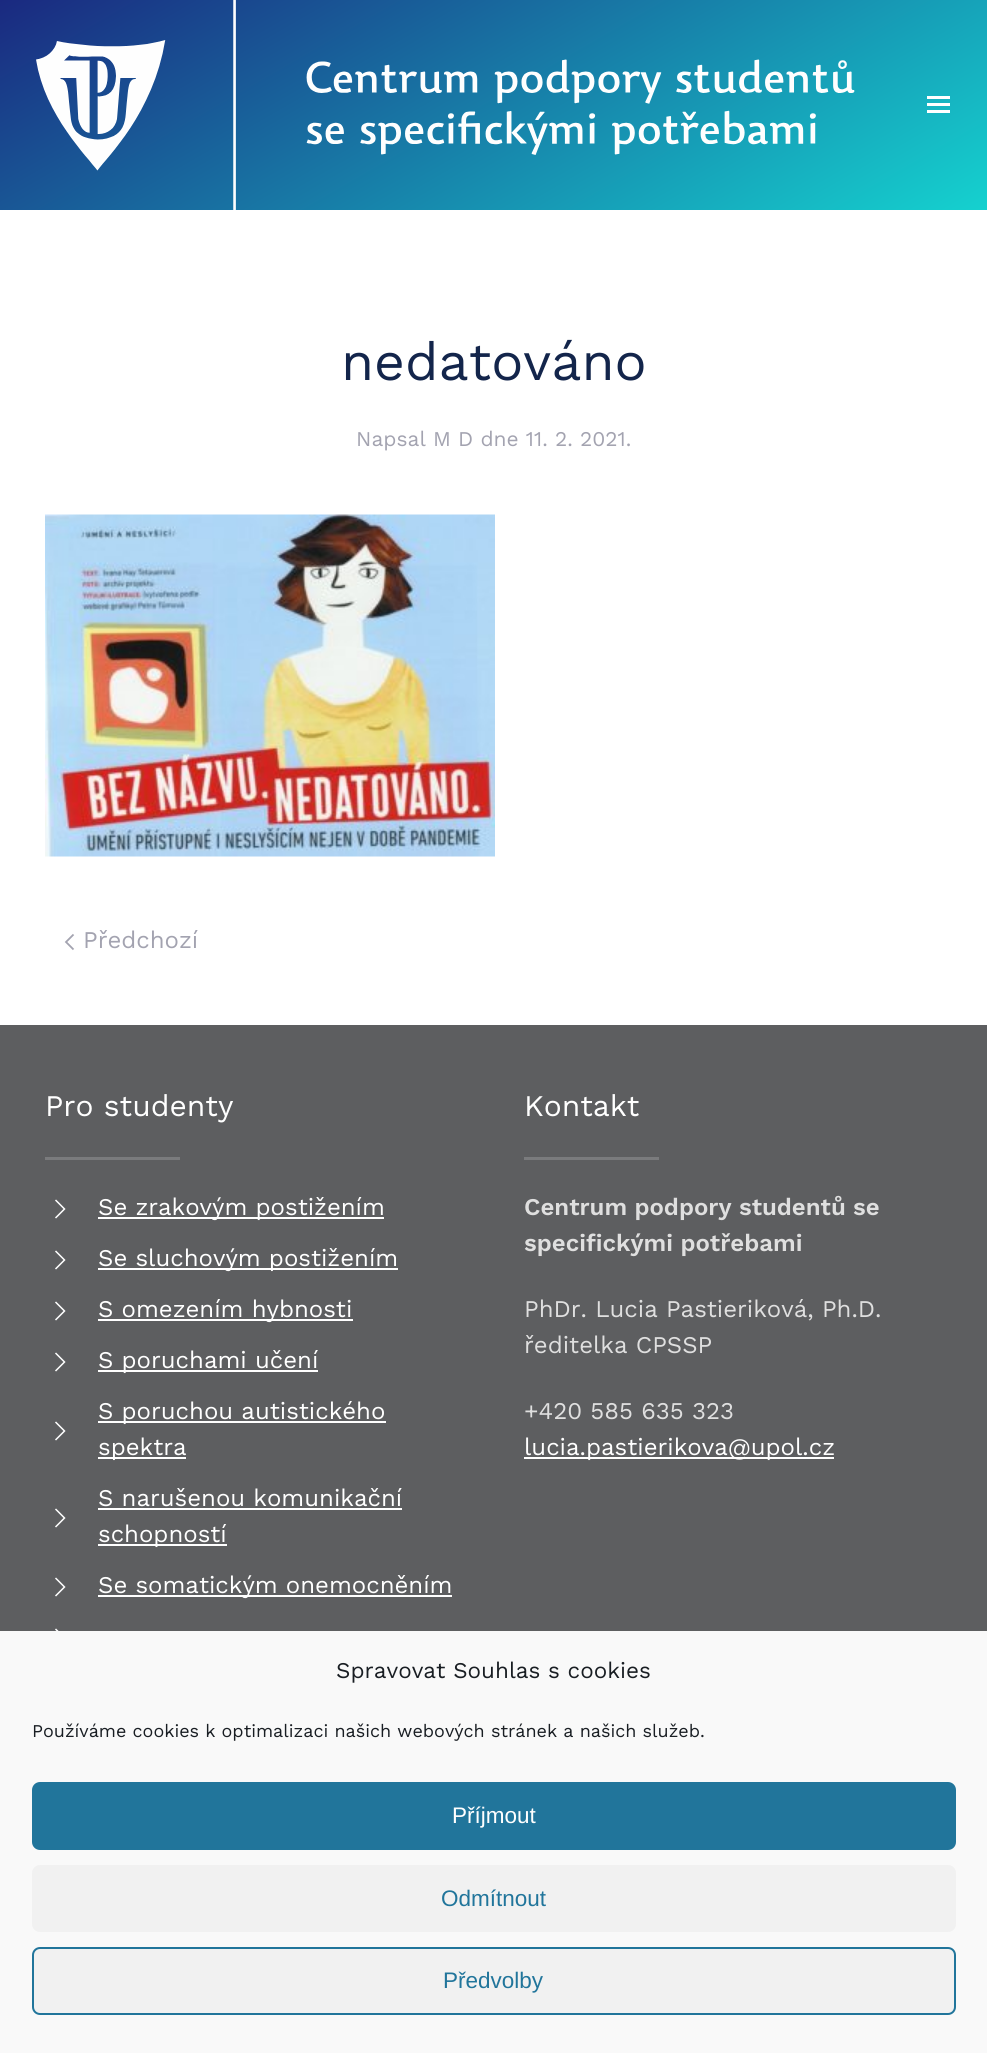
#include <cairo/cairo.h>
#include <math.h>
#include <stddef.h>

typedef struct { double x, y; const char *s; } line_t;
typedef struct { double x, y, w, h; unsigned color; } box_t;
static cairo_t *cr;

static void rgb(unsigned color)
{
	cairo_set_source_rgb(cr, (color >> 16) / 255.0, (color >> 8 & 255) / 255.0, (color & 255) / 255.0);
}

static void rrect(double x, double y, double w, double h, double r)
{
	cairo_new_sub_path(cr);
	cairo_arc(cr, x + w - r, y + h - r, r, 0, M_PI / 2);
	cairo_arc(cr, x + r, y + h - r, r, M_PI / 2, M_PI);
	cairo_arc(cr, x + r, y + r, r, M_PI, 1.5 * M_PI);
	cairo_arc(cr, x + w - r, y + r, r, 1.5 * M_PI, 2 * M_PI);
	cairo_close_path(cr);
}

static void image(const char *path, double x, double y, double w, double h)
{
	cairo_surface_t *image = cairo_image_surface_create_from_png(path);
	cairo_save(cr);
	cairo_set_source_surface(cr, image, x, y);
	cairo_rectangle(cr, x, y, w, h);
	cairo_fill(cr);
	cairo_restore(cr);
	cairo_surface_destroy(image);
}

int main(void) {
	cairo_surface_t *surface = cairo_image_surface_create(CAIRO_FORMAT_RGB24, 987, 2053);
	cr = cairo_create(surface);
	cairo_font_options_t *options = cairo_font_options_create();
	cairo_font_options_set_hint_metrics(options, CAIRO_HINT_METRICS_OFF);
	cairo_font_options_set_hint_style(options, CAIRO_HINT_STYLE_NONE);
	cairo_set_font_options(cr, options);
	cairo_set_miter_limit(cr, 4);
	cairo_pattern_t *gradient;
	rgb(0xffffff);
	cairo_paint(cr);
	gradient = cairo_pattern_create_linear(325, -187, 662, 397);
	cairo_pattern_add_color_stop_rgba(gradient, 0, 0.102, 0.161, 0.502, 1);
	cairo_pattern_add_color_stop_rgba(gradient, 1, 0.082, 0.82, 0.812, 1);
	cairo_set_source(cr, gradient);
	cairo_pattern_destroy(gradient);
	cairo_rectangle(cr, 0, 0, 987, 210);
	cairo_fill(cr);
	image("img/1.png", 36, 0, 819, 210);
	{
		static const box_t items[] = {
			{927, 96, 23, 3, 0xffffff},
			{927, 103, 23, 3, 0xffffff},
			{927, 110, 23, 3, 0xffffff},
		};
		for (size_t i = 0; i < sizeof items / sizeof *items; i++) {
			rgb(items[i].color);
			cairo_rectangle(cr, items[i].x, items[i].y, items[i].w, items[i].h);
			cairo_fill(cr);
		}
	}
	image("img/2.png", 45, 514, 450, 343);
	cairo_new_path(cr);
	cairo_move_to(cr, 73.5, 934.5);
	cairo_line_to(cr, 66, 942);
	cairo_line_to(cr, 73.5, 949.5);
	rgb(0xa3a3b0);
	cairo_set_line_width(cr, 1.8);
	cairo_stroke(cr);
	rgb(0x5d5e60);
	cairo_rectangle(cr, 0, 1025, 987, 606);
	cairo_fill(cr);
	rgb(0x7a7b7d);
	cairo_rectangle(cr, 45, 1157, 135, 3);
	cairo_fill(cr);
	cairo_new_path(cr);
	cairo_move_to(cr, 55.5, 1200);
	cairo_line_to(cr, 64.5, 1209);
	cairo_line_to(cr, 55.5, 1218);
	rgb(0xffffff);
	cairo_set_line_width(cr, 1.5);
	cairo_stroke(cr);
	cairo_rectangle(cr, 98, 1217, 286, 2);
	cairo_fill(cr);
	cairo_new_path(cr);
	cairo_move_to(cr, 55.5, 1251);
	cairo_line_to(cr, 64.5, 1260);
	cairo_line_to(cr, 55.5, 1269);
	cairo_stroke(cr);
	cairo_rectangle(cr, 98, 1268, 300, 2);
	cairo_fill(cr);
	cairo_new_path(cr);
	cairo_move_to(cr, 55.5, 1302);
	cairo_line_to(cr, 64.5, 1311);
	cairo_line_to(cr, 55.5, 1320);
	cairo_stroke(cr);
	cairo_rectangle(cr, 98, 1319, 255, 2);
	cairo_fill(cr);
	cairo_new_path(cr);
	cairo_move_to(cr, 55.5, 1353);
	cairo_line_to(cr, 64.5, 1362);
	cairo_line_to(cr, 55.5, 1371);
	cairo_stroke(cr);
	cairo_rectangle(cr, 98, 1370, 220, 2);
	cairo_fill(cr);
	cairo_new_path(cr);
	cairo_move_to(cr, 55.5, 1422);
	cairo_line_to(cr, 64.5, 1431);
	cairo_line_to(cr, 55.5, 1440);
	cairo_stroke(cr);
	cairo_rectangle(cr, 98, 1421, 288, 2);
	cairo_fill(cr);
	cairo_rectangle(cr, 98, 1457, 88, 2);
	cairo_fill(cr);
	cairo_new_path(cr);
	cairo_move_to(cr, 55.5, 1509);
	cairo_line_to(cr, 64.5, 1518);
	cairo_line_to(cr, 55.5, 1527);
	cairo_stroke(cr);
	cairo_rectangle(cr, 98, 1508, 304, 2);
	cairo_fill(cr);
	cairo_rectangle(cr, 98, 1544, 129, 2);
	cairo_fill(cr);
	cairo_new_path(cr);
	cairo_move_to(cr, 55.5, 1578);
	cairo_line_to(cr, 64.5, 1587);
	cairo_line_to(cr, 55.5, 1596);
	cairo_stroke(cr);
	cairo_rectangle(cr, 98, 1595, 354, 2);
	cairo_fill(cr);
	cairo_new_path(cr);
	cairo_move_to(cr, 55.5, 1629);
	cairo_line_to(cr, 64.5, 1638);
	cairo_line_to(cr, 55.5, 1647);
	cairo_stroke(cr);
	{
		static const box_t items[] = {
			{524, 1157, 135, 3, 0x7a7b7d},
			{524, 1457, 310, 2, 0xffffff},
			{0, 1631, 987, 422, 0xf9f9f9},
		};
		for (size_t i = 0; i < sizeof items / sizeof *items; i++) {
			rgb(items[i].color);
			cairo_rectangle(cr, items[i].x, items[i].y, items[i].w, items[i].h);
			cairo_fill(cr);
		}
	}
	rgb(0x21759b);
	rrect(33, 1783, 922, 66, 7);
	cairo_fill_preserve(cr);
	cairo_set_line_width(cr, 2);
	cairo_stroke(cr);
	rgb(0xf1f1f1);
	rrect(32, 1865, 924, 67, 8);
	cairo_fill(cr);
	rrect(33, 1948, 922, 66, 7);
	cairo_fill_preserve(cr);
	rgb(0x21759b);
	cairo_stroke(cr);
	cairo_select_font_face(cr, "Work Sans", CAIRO_FONT_SLANT_NORMAL, CAIRO_FONT_WEIGHT_NORMAL);
	cairo_set_font_size(cr, 53.5);
	rgb(0x13254b);
	cairo_move_to(cr, 341, 380);
	cairo_show_text(cr, "nedatováno");
	cairo_set_font_size(cr, 21);
	rgb(0xa3a3b0);
	cairo_move_to(cr, 356, 446);
	cairo_show_text(cr, "Napsal M D dne 11. 2. 2021.");
	cairo_set_font_size(cr, 24);
	cairo_move_to(cr, 83, 948);
	cairo_show_text(cr, "Předchozí");
	cairo_set_font_size(cr, 30);
	rgb(0xffffff);
	cairo_move_to(cr, 45, 1116);
	cairo_show_text(cr, "Pro studenty");
	cairo_set_font_size(cr, 24);
	{
		static const line_t items[] = {
			{98, 1215, "Se zrakovým postižením"},
			{98, 1266, "Se sluchovým postižením"},
			{98, 1317, "S omezením hybnosti"},
			{98, 1368, "S poruchami učení"},
			{98, 1419, "S poruchou autistického"},
			{98, 1455, "spektra"},
			{98, 1506, "S narušenou komunikační"},
			{98, 1542, "schopností"},
			{98, 1593, "Se somatickým onemocněním"},
		};
		for (size_t i = 0; i < sizeof items / sizeof *items; i++) {
			cairo_move_to(cr, items[i].x, items[i].y);
			cairo_show_text(cr, items[i].s);
		}
	}
	cairo_set_font_size(cr, 30);
	cairo_move_to(cr, 524, 1116);
	cairo_show_text(cr, "Kontakt");
	cairo_select_font_face(cr, "Work Sans SemiBold", CAIRO_FONT_SLANT_NORMAL, CAIRO_FONT_WEIGHT_NORMAL);
	cairo_set_font_size(cr, 24);
	rgb(0xdfdfdf);
	cairo_move_to(cr, 524, 1215);
	cairo_show_text(cr, "Centrum podpory studentů se");
	cairo_move_to(cr, 524, 1251);
	cairo_show_text(cr, "specifickými potřebami");
	cairo_select_font_face(cr, "Work Sans", CAIRO_FONT_SLANT_NORMAL, CAIRO_FONT_WEIGHT_NORMAL);
	{
		static const line_t items[] = {
			{524, 1317, "PhDr. Lucia Pastieriková, Ph.D."},
			{524, 1353, "ředitelka CPSSP"},
			{524, 1419, "+420 585 635 323"},
		};
		for (size_t i = 0; i < sizeof items / sizeof *items; i++) {
			cairo_move_to(cr, items[i].x, items[i].y);
			cairo_show_text(cr, items[i].s);
		}
	}
	rgb(0xffffff);
	cairo_move_to(cr, 524, 1455);
	cairo_show_text(cr, "lucia.pastierikova@upol.cz");
	cairo_set_font_size(cr, 22.5);
	rgb(0x191e23);
	cairo_move_to(cr, 336, 1678);
	cairo_show_text(cr, "Spravovat Souhlas s cookies");
	cairo_set_font_size(cr, 18);
	cairo_move_to(cr, 32, 1737);
	cairo_show_text(cr, "Používáme cookies k optimalizaci našich webových stránek a našich služeb.");
	cairo_select_font_face(cr, "Liberation Sans", CAIRO_FONT_SLANT_NORMAL, CAIRO_FONT_WEIGHT_NORMAL);
	cairo_set_font_size(cr, 22.5);
	rgb(0xffffff);
	cairo_move_to(cr, 452, 1823);
	cairo_show_text(cr, "Příjmout");
	rgb(0x21759b);
	cairo_move_to(cr, 441, 1906);
	cairo_show_text(cr, "Odmítnout");
	cairo_move_to(cr, 443, 1988);
	cairo_show_text(cr, "Předvolby");
	cairo_surface_write_to_png(surface, "page.png");
	cairo_font_options_destroy(options);
	cairo_destroy(cr);
	cairo_surface_destroy(surface);
	return 0;
}
